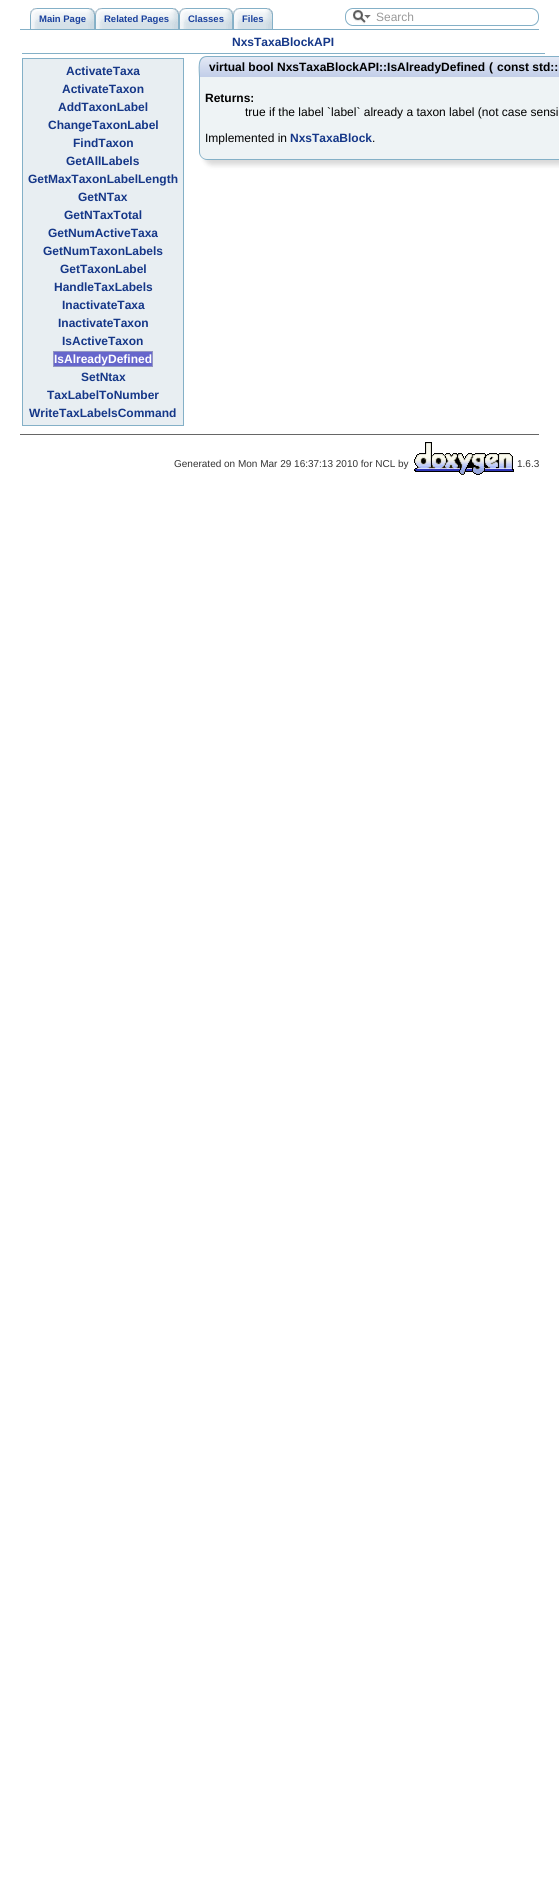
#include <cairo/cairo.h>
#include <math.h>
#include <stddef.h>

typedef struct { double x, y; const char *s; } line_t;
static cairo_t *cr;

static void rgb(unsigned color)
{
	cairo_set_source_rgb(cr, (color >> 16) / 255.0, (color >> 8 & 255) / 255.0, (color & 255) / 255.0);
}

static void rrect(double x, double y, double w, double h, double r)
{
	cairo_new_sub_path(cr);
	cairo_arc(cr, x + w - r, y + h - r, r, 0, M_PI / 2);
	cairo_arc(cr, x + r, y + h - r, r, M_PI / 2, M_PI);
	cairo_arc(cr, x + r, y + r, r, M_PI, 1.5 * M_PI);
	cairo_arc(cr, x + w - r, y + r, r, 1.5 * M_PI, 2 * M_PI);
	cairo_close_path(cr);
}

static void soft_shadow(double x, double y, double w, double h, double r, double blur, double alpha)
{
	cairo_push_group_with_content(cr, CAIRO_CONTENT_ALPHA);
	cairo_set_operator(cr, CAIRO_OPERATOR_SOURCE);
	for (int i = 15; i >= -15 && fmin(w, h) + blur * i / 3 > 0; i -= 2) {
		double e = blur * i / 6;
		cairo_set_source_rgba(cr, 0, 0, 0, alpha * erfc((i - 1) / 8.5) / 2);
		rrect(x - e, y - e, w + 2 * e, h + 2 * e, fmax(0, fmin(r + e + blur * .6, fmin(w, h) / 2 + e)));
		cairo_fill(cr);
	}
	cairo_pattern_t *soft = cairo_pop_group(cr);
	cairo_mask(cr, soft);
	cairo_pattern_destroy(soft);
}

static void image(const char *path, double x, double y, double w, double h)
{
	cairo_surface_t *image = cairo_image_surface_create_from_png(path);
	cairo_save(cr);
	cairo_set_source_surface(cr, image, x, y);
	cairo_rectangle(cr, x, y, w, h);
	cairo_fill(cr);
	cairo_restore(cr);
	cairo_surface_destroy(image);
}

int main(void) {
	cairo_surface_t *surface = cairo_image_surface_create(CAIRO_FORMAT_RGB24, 559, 1898);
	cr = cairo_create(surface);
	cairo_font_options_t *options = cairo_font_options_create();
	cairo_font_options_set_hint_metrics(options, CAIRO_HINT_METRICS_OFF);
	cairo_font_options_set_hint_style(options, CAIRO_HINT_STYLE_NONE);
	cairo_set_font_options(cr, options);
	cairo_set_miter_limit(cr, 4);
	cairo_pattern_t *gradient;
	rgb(0xffffff);
	cairo_paint(cr);
	rgb(0x84b0c7);
	cairo_rectangle(cr, 20, 29, 519, 1);
	cairo_fill(cr);
	image("img/1.png", 39, 8, 56, 21);
	image("img/2.png", 30, 8, 9, 21);
	image("img/3.png", 104, 8, 75, 21);
	image("img/2.png", 95, 8, 9, 21);
	image("img/4.png", 188, 8, 45, 21);
	image("img/2.png", 179, 8, 9, 21);
	image("img/5.png", 242, 8, 31, 21);
	image("img/2.png", 233, 8, 9, 21);
	rrect(345.5, 8.5, 193, 17, 7.5);
	cairo_set_line_width(cr, 1);
	cairo_stroke(cr);
	image("img/6.png", 352, 9, 19, 16);
	rgb(0xffffff);
	cairo_rectangle(cr, 531, 9, 1, 16);
	cairo_fill(cr);
	rgb(0x84b0c7);
	cairo_rectangle(cr, 22, 53, 523, 1);
	cairo_fill(cr);
	rgb(0xe8eef2);
	cairo_rectangle(cr, 22.5, 58.5, 161, 367);
	cairo_fill_preserve(cr);
	rgb(0x84b0c7);
	cairo_stroke(cr);
	rgb(0x6666cc);
	cairo_rectangle(cr, 53.5, 351.5, 99, 15);
	cairo_fill_preserve(cr);
	rgb(0x9295c2);
	cairo_stroke(cr);
	cairo_save(cr);
	cairo_new_path(cr);
	cairo_move_to(cr, 207, 56);
	cairo_line_to(cr, 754, 56);
	cairo_curve_to(cr, 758.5, 56, 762, 59.5, 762, 64);
	cairo_line_to(cr, 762, 77);
	cairo_line_to(cr, 199, 77);
	cairo_line_to(cr, 199, 64);
	cairo_curve_to(cr, 199, 59.5, 202.5, 56, 207, 56);
	cairo_close_path(cr);
	cairo_clip(cr);
	gradient = cairo_pattern_create_linear(200, 57, 200, 77);
	cairo_pattern_add_color_stop_rgba(gradient, 0, 0.894, 0.914, 0.961, 1);
	cairo_pattern_add_color_stop_rgba(gradient, 1, 0.757, 0.804, 0.91, 1);
	cairo_set_source(cr, gradient);
	cairo_pattern_destroy(gradient);
	cairo_rectangle(cr, 199, 57, 360, 20);
	cairo_fill(cr);
	cairo_restore(cr);
	rgb(0x84b0c7);
	cairo_set_fill_rule(cr, CAIRO_FILL_RULE_EVEN_ODD);
	cairo_new_path(cr);
	cairo_move_to(cr, 207, 56);
	cairo_line_to(cr, 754, 56);
	cairo_curve_to(cr, 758, 56, 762, 60, 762, 64);
	cairo_line_to(cr, 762, 77);
	cairo_line_to(cr, 199, 77);
	cairo_curve_to(cr, 199, 70, 196, 56, 207, 56);
	cairo_close_path(cr);
	cairo_move_to(cr, 207, 57);
	cairo_line_to(cr, 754, 57);
	cairo_curve_to(cr, 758, 57, 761, 60, 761, 64);
	cairo_line_to(cr, 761, 77);
	cairo_line_to(cr, 200, 77);
	cairo_curve_to(cr, 200, 71, 197, 57, 207, 57);
	cairo_close_path(cr);
	cairo_fill(cr);
	rgb(0x000000);
	soft_shadow(204, 82, 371, 83, 8, 2.5, 0.15);
	rgb(0xeef3f5);
	cairo_new_path(cr);
	cairo_move_to(cr, 199, 77);
	cairo_line_to(cr, 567, 77);
	cairo_line_to(cr, 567, 152);
	cairo_curve_to(cr, 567, 156.5, 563.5, 160, 559, 160);
	cairo_line_to(cr, 207, 160);
	cairo_curve_to(cr, 202.5, 160, 199, 156.5, 199, 152);
	cairo_close_path(cr);
	cairo_fill(cr);
	rgb(0x84b0c7);
	cairo_new_path(cr);
	cairo_move_to(cr, 199, 77);
	cairo_line_to(cr, 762, 77);
	cairo_line_to(cr, 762, 152);
	cairo_curve_to(cr, 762, 156, 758, 160, 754, 160);
	cairo_line_to(cr, 207, 160);
	cairo_curve_to(cr, 203, 160, 199, 156, 199, 152);
	cairo_close_path(cr);
	cairo_move_to(cr, 200, 77);
	cairo_line_to(cr, 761, 77);
	cairo_line_to(cr, 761, 152);
	cairo_curve_to(cr, 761, 156, 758, 159, 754, 159);
	cairo_line_to(cr, 207, 159);
	cairo_curve_to(cr, 203, 159, 200, 156, 200, 152);
	cairo_close_path(cr);
	cairo_fill(cr);
	rgb(0x666666);
	cairo_rectangle(cr, 20, 434, 519, 1);
	cairo_fill(cr);
	image("img/7.png", 414, 442, 100, 33);
	cairo_select_font_face(cr, "Liberation Sans", CAIRO_FONT_SLANT_NORMAL, CAIRO_FONT_WEIGHT_BOLD);
	cairo_set_font_size(cr, 9.5);
	rgb(0x1a419d);
	{
		static const line_t items[] = {
			{39, 22, "Main Page"},
			{104, 22, "Related Pages"},
			{188, 22, "Classes"},
			{242, 22, "Files"},
		};
		for (size_t i = 0; i < sizeof items / sizeof *items; i++) {
			cairo_move_to(cr, items[i].x, items[i].y);
			cairo_show_text(cr, items[i].s);
		}
	}
	cairo_select_font_face(cr, "Liberation Sans", CAIRO_FONT_SLANT_NORMAL, CAIRO_FONT_WEIGHT_NORMAL);
	cairo_set_font_size(cr, 12);
	rgb(0x999999);
	cairo_move_to(cr, 376, 21);
	cairo_show_text(cr, "Search");
	cairo_select_font_face(cr, "Liberation Sans", CAIRO_FONT_SLANT_NORMAL, CAIRO_FONT_WEIGHT_BOLD);
	rgb(0x153788);
	{
		static const line_t items[] = {
			{232, 46, "NxsTaxaBlockAPI"},
			{66, 75, "ActivateTaxa"},
			{62, 93, "ActivateTaxon"},
			{58, 111, "AddTaxonLabel"},
			{48, 129, "ChangeTaxonLabel"},
			{73, 147, "FindTaxon"},
			{66, 165, "GetAllLabels"},
			{28, 183, "GetMaxTaxonLabelLength"},
			{78, 201, "GetNTax"},
			{64, 219, "GetNTaxTotal"},
			{48, 237, "GetNumActiveTaxa"},
			{43, 255, "GetNumTaxonLabels"},
			{60, 273, "GetTaxonLabel"},
			{54, 291, "HandleTaxLabels"},
			{62, 309, "InactivateTaxa"},
			{58, 327, "InactivateTaxon"},
			{62, 345, "IsActiveTaxon"},
		};
		for (size_t i = 0; i < sizeof items / sizeof *items; i++) {
			cairo_move_to(cr, items[i].x, items[i].y);
			cairo_show_text(cr, items[i].s);
		}
	}
	rgb(0xffffff);
	cairo_move_to(cr, 54, 363);
	cairo_show_text(cr, "IsAlreadyDefined");
	rgb(0x153788);
	{
		static const line_t items[] = {
			{81, 381, "SetNtax"},
			{47, 399, "TaxLabelToNumber"},
			{29, 417, "WriteTaxLabelsCommand"},
		};
		for (size_t i = 0; i < sizeof items / sizeof *items; i++) {
			cairo_move_to(cr, items[i].x, items[i].y);
			cairo_show_text(cr, items[i].s);
		}
	}
	rgb(0x000000);
	{
		static const line_t items[] = {
			{209, 71, "virtual bool NxsTaxaBlockAPI::IsAlreadyDefined"},
			{489, 71, "("},
			{497, 71, "const std::"},
			{205, 102, "Returns:"},
		};
		for (size_t i = 0; i < sizeof items / sizeof *items; i++) {
			cairo_move_to(cr, items[i].x, items[i].y);
			cairo_show_text(cr, items[i].s);
		}
	}
	cairo_select_font_face(cr, "Liberation Sans", CAIRO_FONT_SLANT_NORMAL, CAIRO_FONT_WEIGHT_NORMAL);
	cairo_move_to(cr, 245, 116);
	cairo_show_text(cr, "true if the label `label` already a taxon label (not case sensi");
	cairo_move_to(cr, 205, 142);
	cairo_show_text(cr, "Implemented in");
	cairo_select_font_face(cr, "Liberation Sans", CAIRO_FONT_SLANT_NORMAL, CAIRO_FONT_WEIGHT_BOLD);
	rgb(0x153788);
	cairo_move_to(cr, 290, 142);
	cairo_show_text(cr, "NxsTaxaBlock");
	cairo_select_font_face(cr, "Liberation Sans", CAIRO_FONT_SLANT_NORMAL, CAIRO_FONT_WEIGHT_NORMAL);
	rgb(0x000000);
	cairo_move_to(cr, 372, 142);
	cairo_show_text(cr, ".");
	cairo_set_font_size(cr, 10);
	rgb(0x333333);
	cairo_move_to(cr, 174, 467);
	cairo_show_text(cr, "Generated on Mon Mar 29 16:37:13 2010 for NCL by");
	cairo_move_to(cr, 517, 467);
	cairo_show_text(cr, "1.6.3");
	cairo_surface_write_to_png(surface, "page.png");
	cairo_font_options_destroy(options);
	cairo_destroy(cr);
	cairo_surface_destroy(surface);
	return 0;
}
